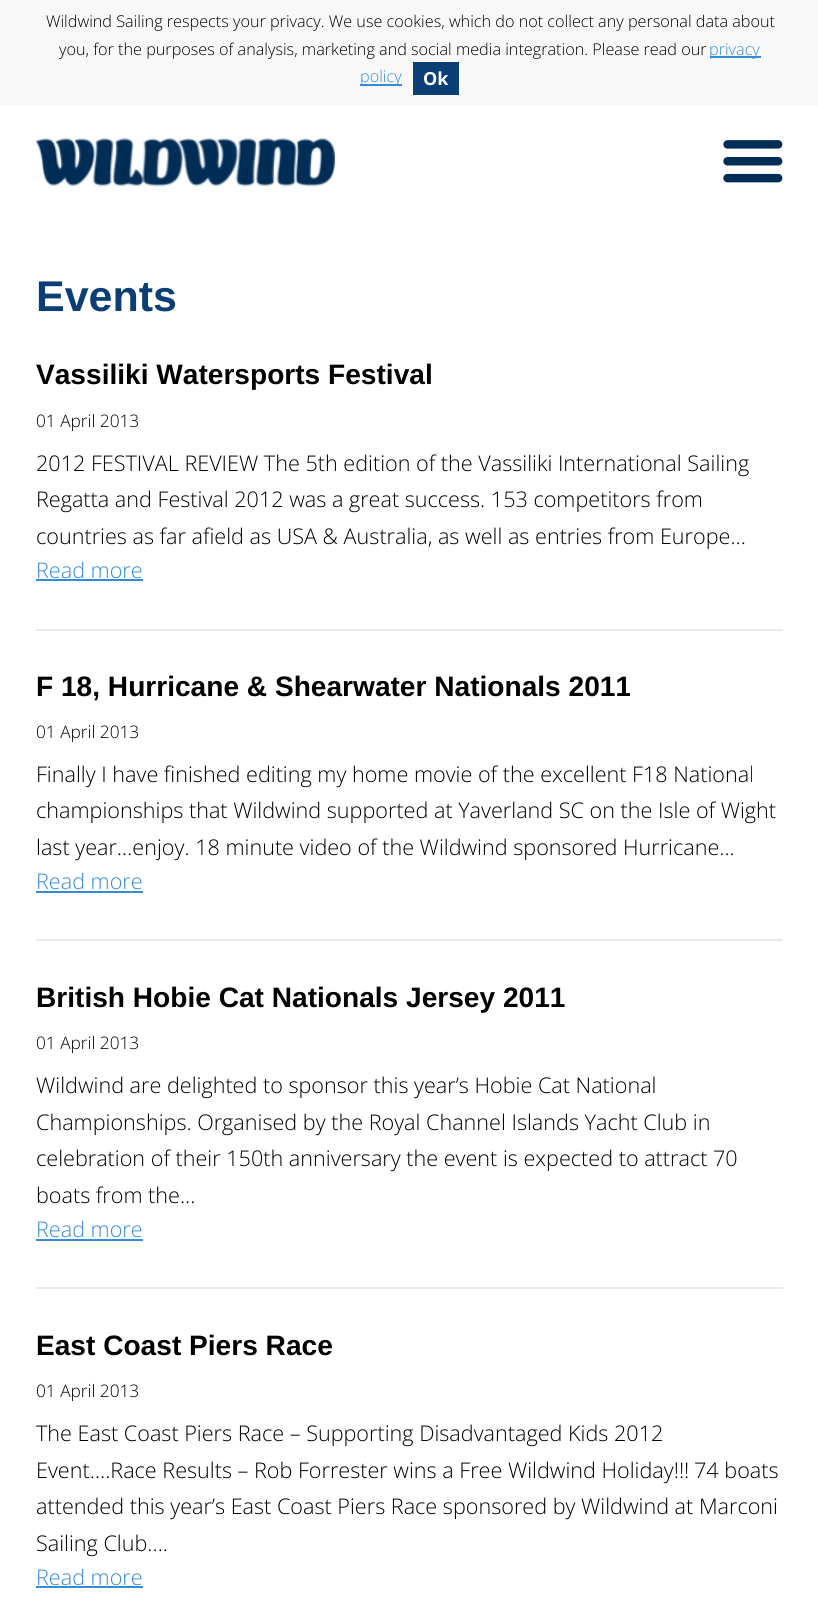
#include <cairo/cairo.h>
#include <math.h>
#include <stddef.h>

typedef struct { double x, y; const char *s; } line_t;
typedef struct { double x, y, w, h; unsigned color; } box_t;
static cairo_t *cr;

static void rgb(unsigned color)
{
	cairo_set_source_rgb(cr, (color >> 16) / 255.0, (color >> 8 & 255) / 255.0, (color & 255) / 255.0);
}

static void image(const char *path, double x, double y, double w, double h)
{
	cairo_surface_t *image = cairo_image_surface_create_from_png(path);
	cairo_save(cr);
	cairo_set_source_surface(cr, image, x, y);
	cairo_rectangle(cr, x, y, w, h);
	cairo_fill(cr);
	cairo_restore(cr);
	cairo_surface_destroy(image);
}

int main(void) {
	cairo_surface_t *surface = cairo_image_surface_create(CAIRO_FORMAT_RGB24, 818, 1620);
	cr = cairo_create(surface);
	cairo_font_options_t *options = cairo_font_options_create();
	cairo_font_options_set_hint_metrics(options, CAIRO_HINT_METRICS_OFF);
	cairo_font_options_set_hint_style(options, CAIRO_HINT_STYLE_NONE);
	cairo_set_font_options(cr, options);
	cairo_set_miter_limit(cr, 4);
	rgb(0xffffff);
	cairo_paint(cr);
	{
		static const box_t items[] = {
			{0, 0, 818, 105, 0xf8f8f8},
			{710, 56, 51, 2, 0x368bd7},
			{360, 84, 42, 2, 0x368bd7},
			{413, 62, 46, 33, 0x0a3e75},
		};
		for (size_t i = 0; i < sizeof items / sizeof *items; i++) {
			rgb(items[i].color);
			cairo_rectangle(cr, items[i].x, items[i].y, items[i].w, items[i].h);
			cairo_fill(cr);
		}
	}
	image("img/1.png", 36, 138, 300, 49);
	image("img/2.png", 723, 140, 60, 43);
	{
		static const box_t items[] = {
			{36, 629, 747, 2, 0xe9e9e9},
			{36, 579, 107, 2, 0x368bd7},
			{36, 939, 747, 2, 0xe9e9e9},
			{36, 891, 107, 2, 0x368bd7},
			{36, 1287, 747, 2, 0xe9e9e9},
			{36, 1239, 107, 2, 0x368bd7},
			{36, 1586, 107, 2, 0x368bd7},
		};
		for (size_t i = 0; i < sizeof items / sizeof *items; i++) {
			rgb(items[i].color);
			cairo_rectangle(cr, items[i].x, items[i].y, items[i].w, items[i].h);
			cairo_fill(cr);
		}
	}
	cairo_select_font_face(cr, "Open Sans Light", CAIRO_FONT_SLANT_NORMAL, CAIRO_FONT_WEIGHT_NORMAL);
	cairo_set_font_size(cr, 16.2);
	rgb(0x000000);
	cairo_move_to(cr, 46, 27);
	cairo_show_text(cr, "Wildwind Sailing respects your privacy. We use cookies, which do not collect any personal data about");
	cairo_move_to(cr, 59, 55);
	cairo_show_text(cr, "you, for the purposes of analysis, marketing and social media integration. Please read our");
	rgb(0x368bd7);
	cairo_move_to(cr, 709, 55);
	cairo_show_text(cr, "privacy");
	cairo_move_to(cr, 360, 82);
	cairo_show_text(cr, "policy");
	cairo_select_font_face(cr, "Open Sans", CAIRO_FONT_SLANT_NORMAL, CAIRO_FONT_WEIGHT_BOLD);
	cairo_set_font_size(cr, 18);
	rgb(0xffffff);
	cairo_move_to(cr, 423, 85);
	cairo_show_text(cr, "Ok");
	cairo_select_font_face(cr, "Liberation Sans", CAIRO_FONT_SLANT_NORMAL, CAIRO_FONT_WEIGHT_BOLD);
	cairo_set_font_size(cr, 43);
	rgb(0x0a3e75);
	cairo_move_to(cr, 36, 311);
	cairo_show_text(cr, "Events");
	cairo_set_font_size(cr, 28.1);
	rgb(0x000000);
	cairo_move_to(cr, 36, 384);
	cairo_show_text(cr, "Vassiliki Watersports Festival");
	cairo_select_font_face(cr, "Open Sans Light", CAIRO_FONT_SLANT_NORMAL, CAIRO_FONT_WEIGHT_NORMAL);
	cairo_set_font_size(cr, 17.25);
	cairo_move_to(cr, 36, 427);
	cairo_show_text(cr, "01 April 2013");
	cairo_set_font_size(cr, 21.6);
	{
		static const line_t items[] = {
			{36, 471, "2012 FESTIVAL REVIEW The 5th edition of the Vassiliki International Sailing"},
			{36, 507, "Regatta and Festival 2012 was a great success. 153 competitors from"},
			{36, 544, "countries as far afield as USA & Australia, as well as entries from Europe..."},
		};
		for (size_t i = 0; i < sizeof items / sizeof *items; i++) {
			cairo_move_to(cr, items[i].x, items[i].y);
			cairo_show_text(cr, items[i].s);
		}
	}
	rgb(0x368bd7);
	cairo_move_to(cr, 36, 578);
	cairo_show_text(cr, "Read more");
	cairo_select_font_face(cr, "Liberation Sans", CAIRO_FONT_SLANT_NORMAL, CAIRO_FONT_WEIGHT_BOLD);
	cairo_set_font_size(cr, 28.1);
	rgb(0x000000);
	cairo_move_to(cr, 36, 696);
	cairo_show_text(cr, "F 18, Hurricane & Shearwater Nationals 2011");
	cairo_select_font_face(cr, "Open Sans Light", CAIRO_FONT_SLANT_NORMAL, CAIRO_FONT_WEIGHT_NORMAL);
	cairo_set_font_size(cr, 17.25);
	cairo_move_to(cr, 36, 738);
	cairo_show_text(cr, "01 April 2013");
	cairo_set_font_size(cr, 21.6);
	{
		static const line_t items[] = {
			{36, 782, "Finally I have finished editing my home movie of the excellent F18 National"},
			{36, 818, "championships that Wildwind supported at Yaverland SC on the Isle of Wight"},
			{36, 855, "last year…enjoy. 18 minute video of the Wildwind sponsored Hurricane..."},
		};
		for (size_t i = 0; i < sizeof items / sizeof *items; i++) {
			cairo_move_to(cr, items[i].x, items[i].y);
			cairo_show_text(cr, items[i].s);
		}
	}
	rgb(0x368bd7);
	cairo_move_to(cr, 36, 889);
	cairo_show_text(cr, "Read more");
	cairo_select_font_face(cr, "Liberation Sans", CAIRO_FONT_SLANT_NORMAL, CAIRO_FONT_WEIGHT_BOLD);
	cairo_set_font_size(cr, 28.1);
	rgb(0x000000);
	cairo_move_to(cr, 36, 1007);
	cairo_show_text(cr, "British Hobie Cat Nationals Jersey 2011");
	cairo_select_font_face(cr, "Open Sans Light", CAIRO_FONT_SLANT_NORMAL, CAIRO_FONT_WEIGHT_NORMAL);
	cairo_set_font_size(cr, 17.25);
	cairo_move_to(cr, 36, 1049);
	cairo_show_text(cr, "01 April 2013");
	cairo_set_font_size(cr, 21.6);
	{
		static const line_t items[] = {
			{36, 1093, "Wildwind are delighted to sponsor this year’s Hobie Cat National"},
			{36, 1130, "Championships. Organised by the Royal Channel Islands Yacht Club in"},
			{36, 1166, "celebration of their 150th anniversary the event is expected to attract 70"},
			{36, 1203, "boats from the..."},
		};
		for (size_t i = 0; i < sizeof items / sizeof *items; i++) {
			cairo_move_to(cr, items[i].x, items[i].y);
			cairo_show_text(cr, items[i].s);
		}
	}
	rgb(0x368bd7);
	cairo_move_to(cr, 36, 1237);
	cairo_show_text(cr, "Read more");
	cairo_select_font_face(cr, "Liberation Sans", CAIRO_FONT_SLANT_NORMAL, CAIRO_FONT_WEIGHT_BOLD);
	cairo_set_font_size(cr, 28.1);
	rgb(0x000000);
	cairo_move_to(cr, 36, 1355);
	cairo_show_text(cr, "East Coast Piers Race");
	cairo_select_font_face(cr, "Open Sans Light", CAIRO_FONT_SLANT_NORMAL, CAIRO_FONT_WEIGHT_NORMAL);
	cairo_set_font_size(cr, 17.25);
	cairo_move_to(cr, 36, 1397);
	cairo_show_text(cr, "01 April 2013");
	cairo_set_font_size(cr, 21.6);
	{
		static const line_t items[] = {
			{36, 1441, "The East Coast Piers Race – Supporting Disadvantaged Kids"},
			{614, 1441, "2012"},
			{36, 1478, "Event….Race Results – Rob Forrester wins a Free Wildwind Holiday!!!"},
			{694, 1478, "74 boats"},
			{36, 1514, "attended this year’s East Coast Piers Race sponsored by Wildwind at Marconi"},
			{36, 1551, "Sailing Club...."},
		};
		for (size_t i = 0; i < sizeof items / sizeof *items; i++) {
			cairo_move_to(cr, items[i].x, items[i].y);
			cairo_show_text(cr, items[i].s);
		}
	}
	rgb(0x368bd7);
	cairo_move_to(cr, 36, 1585);
	cairo_show_text(cr, "Read more");
	cairo_surface_write_to_png(surface, "page.png");
	cairo_font_options_destroy(options);
	cairo_destroy(cr);
	cairo_surface_destroy(surface);
	return 0;
}
